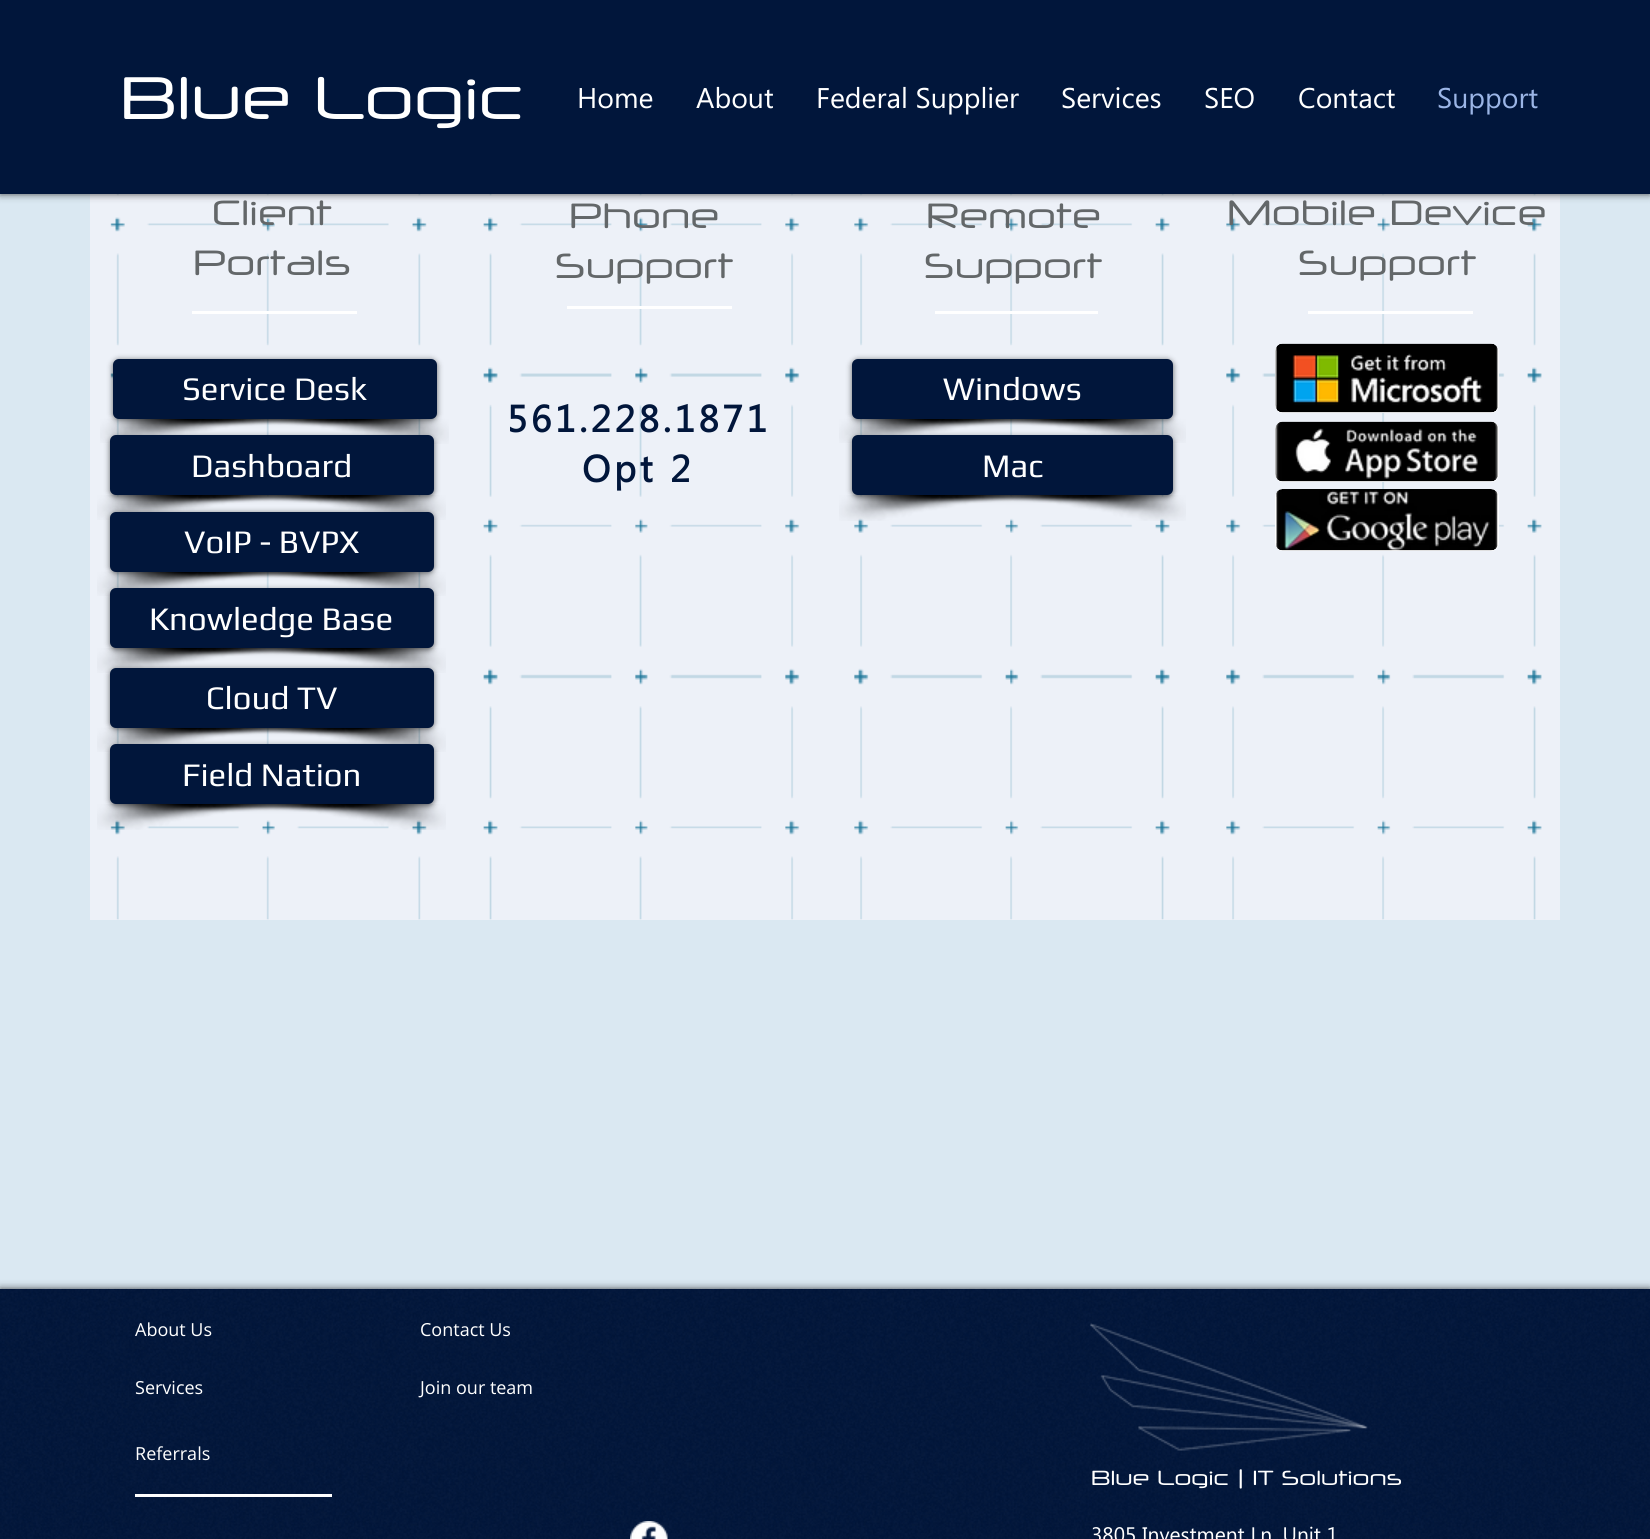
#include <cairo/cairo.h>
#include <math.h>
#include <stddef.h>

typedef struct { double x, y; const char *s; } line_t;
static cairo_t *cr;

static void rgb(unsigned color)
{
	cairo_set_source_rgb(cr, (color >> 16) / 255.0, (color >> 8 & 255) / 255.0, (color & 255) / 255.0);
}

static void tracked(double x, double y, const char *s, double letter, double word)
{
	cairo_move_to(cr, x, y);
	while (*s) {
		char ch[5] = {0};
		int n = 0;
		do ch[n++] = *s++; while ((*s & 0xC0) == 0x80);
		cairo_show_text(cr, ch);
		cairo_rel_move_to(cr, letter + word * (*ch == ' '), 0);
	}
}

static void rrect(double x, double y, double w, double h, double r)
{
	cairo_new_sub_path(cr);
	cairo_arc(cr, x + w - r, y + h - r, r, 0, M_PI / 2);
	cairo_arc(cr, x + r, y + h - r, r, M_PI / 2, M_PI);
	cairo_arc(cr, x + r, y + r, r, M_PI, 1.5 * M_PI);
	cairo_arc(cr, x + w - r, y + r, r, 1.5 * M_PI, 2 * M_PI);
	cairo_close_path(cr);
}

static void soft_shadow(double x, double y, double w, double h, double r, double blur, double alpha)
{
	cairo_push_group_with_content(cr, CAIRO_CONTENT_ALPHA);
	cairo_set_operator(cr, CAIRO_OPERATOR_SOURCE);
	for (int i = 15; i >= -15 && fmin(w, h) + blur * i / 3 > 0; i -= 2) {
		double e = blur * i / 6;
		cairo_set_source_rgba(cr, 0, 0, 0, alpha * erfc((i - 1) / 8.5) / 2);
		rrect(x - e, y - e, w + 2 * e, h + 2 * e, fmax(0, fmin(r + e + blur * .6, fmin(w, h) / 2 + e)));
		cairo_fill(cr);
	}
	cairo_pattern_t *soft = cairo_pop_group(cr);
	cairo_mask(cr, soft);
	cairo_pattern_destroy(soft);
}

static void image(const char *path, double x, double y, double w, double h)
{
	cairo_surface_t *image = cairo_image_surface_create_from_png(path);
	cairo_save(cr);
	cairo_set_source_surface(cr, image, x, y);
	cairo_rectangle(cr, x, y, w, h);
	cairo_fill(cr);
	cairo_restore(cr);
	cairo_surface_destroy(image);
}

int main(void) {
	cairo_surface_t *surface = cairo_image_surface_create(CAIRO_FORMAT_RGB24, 1650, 1539);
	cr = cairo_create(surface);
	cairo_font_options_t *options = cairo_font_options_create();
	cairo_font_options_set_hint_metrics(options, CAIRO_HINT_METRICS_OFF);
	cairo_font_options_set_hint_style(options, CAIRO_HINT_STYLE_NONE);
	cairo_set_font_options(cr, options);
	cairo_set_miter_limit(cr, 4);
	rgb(0xdae8f2);
	cairo_paint(cr);
	rgb(0xedf1f8);
	cairo_rectangle(cr, 90, 194, 1470, 726);
	cairo_fill(cr);
	image("img/1.png", 110, 194, 317, 726);
	image("img/12.png", 483, 194, 317, 726);
	image("img/13.png", 854, 194, 316, 726);
	image("img/13.png", 1226, 194, 316, 726);
	rgb(0x000000);
	soft_shadow(0, 0, 1650, 194, 0, 4, 0.7);
	rgb(0x01163b);
	cairo_rectangle(cr, 0, 0, 1650, 194);
	cairo_fill(cr);
	rgb(0xffffff);
	cairo_rectangle(cr, 192, 311, 165, 3);
	cairo_fill(cr);
	image("img/2.png", 100, 418, 223, 25);
	image("img/3.png", 242, 418, 207, 26);
	rgb(0x000000);
	soft_shadow(113, 360, 324, 60, 6, 3, 0.6);
	rgb(0x01163b);
	rrect(113, 359, 324, 60, 6);
	cairo_fill(cr);
	image("img/4.png", 97, 495, 230, 25);
	image("img/5.png", 242, 495, 204, 25);
	rgb(0x000000);
	soft_shadow(110, 437, 324, 60, 6, 3, 0.6);
	rgb(0x01163b);
	rrect(110, 435, 324, 60, 6);
	cairo_fill(cr);
	image("img/6.png", 97, 571, 223, 25);
	image("img/7.png", 239, 571, 207, 25);
	rgb(0x000000);
	soft_shadow(110, 513, 324, 60, 6, 3, 0.6);
	rgb(0x01163b);
	rrect(110, 512, 324, 60, 6);
	cairo_fill(cr);
	image("img/8.png", 97, 648, 230, 25);
	image("img/9.png", 242, 648, 204, 25);
	rgb(0x000000);
	soft_shadow(110, 590, 324, 60, 6, 3, 0.6);
	rgb(0x01163b);
	rrect(110, 588, 324, 60, 6);
	cairo_fill(cr);
	image("img/6.png", 97, 727, 223, 25);
	image("img/7.png", 239, 727, 207, 25);
	rgb(0x000000);
	soft_shadow(110, 669, 324, 60, 6, 3, 0.6);
	rgb(0x01163b);
	rrect(110, 668, 324, 60, 6);
	cairo_fill(cr);
	image("img/10.png", 97, 804, 230, 26);
	image("img/11.png", 242, 804, 204, 26);
	rgb(0x000000);
	soft_shadow(110, 746, 324, 60, 6, 3, 0.6);
	rgb(0x01163b);
	rrect(110, 744, 324, 60, 6);
	cairo_fill(cr);
	rgb(0xffffff);
	cairo_rectangle(cr, 567, 306, 165, 3);
	cairo_fill(cr);
	cairo_rectangle(cr, 935, 311, 163, 3);
	cairo_fill(cr);
	image("img/14.png", 839, 418, 223, 25);
	image("img/15.png", 979, 418, 207, 25);
	rgb(0x000000);
	soft_shadow(852, 360, 321, 60, 6, 3, 0.6);
	rgb(0x01163b);
	rrect(852, 359, 321, 60, 6);
	cairo_fill(cr);
	image("img/16.png", 839, 495, 230, 26);
	image("img/17.png", 982, 495, 204, 26);
	rgb(0x000000);
	soft_shadow(852, 437, 321, 60, 6, 3, 0.6);
	rgb(0x01163b);
	rrect(852, 435, 321, 60, 6);
	cairo_fill(cr);
	rgb(0xffffff);
	cairo_rectangle(cr, 1308, 311, 165, 3);
	cairo_fill(cr);
	rrect(1275, 344, 224, 69, 8);
	cairo_fill(cr);
	image("img/18.png", 1275, 343, 224, 70);
	rrect(1275, 422, 224, 60, 8);
	cairo_fill(cr);
	image("img/19.png", 1275, 421, 224, 61);
	rrect(1275, 489, 224, 62, 8);
	cairo_fill(cr);
	image("img/20.png", 1276, 489, 222, 62);
	rgb(0x000000);
	soft_shadow(0, 1289, 1650, 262, 0, 4, 0.7);
	rgb(0x01163b);
	cairo_rectangle(cr, 0, 1289, 1650, 250);
	cairo_fill(cr);
	image("img/21.png", 0, 1288, 1650, 251);
	image("img/22.png", 1090, 1323, 278, 128);
	rgb(0xffffff);
	cairo_rectangle(cr, 135, 1494, 197, 3);
	cairo_fill(cr);
	image("img/23.png", 630, 1521, 38, 18);
	cairo_select_font_face(cr, "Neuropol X", CAIRO_FONT_SLANT_NORMAL, CAIRO_FONT_WEIGHT_NORMAL);
	cairo_set_font_size(cr, 61.5);
	cairo_move_to(cr, 120, 119);
	cairo_show_text(cr, "Blue Logic");
	cairo_select_font_face(cr, "Segoe UI", CAIRO_FONT_SLANT_NORMAL, CAIRO_FONT_WEIGHT_NORMAL);
	cairo_set_font_size(cr, 28.5);
	{
		static const line_t items[] = {
			{577, 108, "Home"},
			{696, 108, "About"},
			{816, 108, "Federal Supplier"},
			{1061, 108, "Services"},
			{1204, 108, "SEO"},
			{1298, 108, "Contact"},
		};
		for (size_t i = 0; i < sizeof items / sizeof *items; i++) {
			cairo_move_to(cr, items[i].x, items[i].y);
			cairo_show_text(cr, items[i].s);
		}
	}
	rgb(0x9bb5e6);
	cairo_move_to(cr, 1437, 108);
	cairo_show_text(cr, "Support");
	cairo_select_font_face(cr, "Neuropol X", CAIRO_FONT_SLANT_NORMAL, CAIRO_FONT_WEIGHT_NORMAL);
	cairo_set_font_size(cr, 36);
	rgb(0x636769);
	cairo_move_to(cr, 212, 225);
	cairo_show_text(cr, "Client");
	cairo_move_to(cr, 193, 275);
	cairo_show_text(cr, "Portals");
	cairo_select_font_face(cr, "Play", CAIRO_FONT_SLANT_NORMAL, CAIRO_FONT_WEIGHT_NORMAL);
	cairo_set_font_size(cr, 33);
	rgb(0xffffff);
	{
		static const line_t items[] = {
			{182, 400, "Service Desk"},
			{191, 477, "Dashboard"},
			{184, 553, "VoIP - BVPX"},
			{149, 630, "Knowledge Base"},
			{206, 709, "Cloud TV"},
			{182, 786, "Field Nation"},
		};
		for (size_t i = 0; i < sizeof items / sizeof *items; i++) {
			cairo_move_to(cr, items[i].x, items[i].y);
			cairo_show_text(cr, items[i].s);
		}
	}
	cairo_select_font_face(cr, "Neuropol X", CAIRO_FONT_SLANT_NORMAL, CAIRO_FONT_WEIGHT_NORMAL);
	cairo_set_font_size(cr, 36);
	rgb(0x636769);
	cairo_move_to(cr, 569, 228);
	cairo_show_text(cr, "Phone");
	cairo_move_to(cr, 555, 278);
	cairo_show_text(cr, "Support");
	cairo_select_font_face(cr, "Segoe UI", CAIRO_FONT_SLANT_NORMAL, CAIRO_FONT_WEIGHT_BOLD);
	cairo_set_font_size(cr, 37.5);
	rgb(0x01163b);
	tracked(507, 432, "561.228.1871", 3.75, 0);
	tracked(582, 482, "Opt 2", 3.75, 0);
	cairo_select_font_face(cr, "Neuropol X", CAIRO_FONT_SLANT_NORMAL, CAIRO_FONT_WEIGHT_NORMAL);
	cairo_set_font_size(cr, 36);
	rgb(0x636769);
	cairo_move_to(cr, 926, 228);
	cairo_show_text(cr, "Remote");
	cairo_move_to(cr, 924, 278);
	cairo_show_text(cr, "Support");
	cairo_select_font_face(cr, "Play", CAIRO_FONT_SLANT_NORMAL, CAIRO_FONT_WEIGHT_NORMAL);
	cairo_set_font_size(cr, 33);
	rgb(0xffffff);
	cairo_move_to(cr, 943, 400);
	cairo_show_text(cr, "Windows");
	cairo_move_to(cr, 982, 477);
	cairo_show_text(cr, "Mac");
	cairo_select_font_face(cr, "Neuropol X", CAIRO_FONT_SLANT_NORMAL, CAIRO_FONT_WEIGHT_NORMAL);
	cairo_set_font_size(cr, 36);
	rgb(0x636769);
	cairo_move_to(cr, 1227, 225);
	cairo_show_text(cr, "Mobile Device");
	cairo_move_to(cr, 1298, 275);
	cairo_show_text(cr, "Support");
	cairo_select_font_face(cr, "Open Sans", CAIRO_FONT_SLANT_NORMAL, CAIRO_FONT_WEIGHT_NORMAL);
	cairo_set_font_size(cr, 18);
	rgb(0xffffff);
	{
		static const line_t items[] = {
			{135, 1336, "About Us"},
			{420, 1336, "Contact Us"},
			{135, 1394, "Services"},
			{420, 1394, "Join our team"},
			{135, 1460, "Referrals"},
		};
		for (size_t i = 0; i < sizeof items / sizeof *items; i++) {
			cairo_move_to(cr, items[i].x, items[i].y);
			cairo_show_text(cr, items[i].s);
		}
	}
	cairo_select_font_face(cr, "Neuropol X", CAIRO_FONT_SLANT_NORMAL, CAIRO_FONT_WEIGHT_NORMAL);
	cairo_set_font_size(cr, 21);
	cairo_move_to(cr, 1091, 1485);
	cairo_show_text(cr, "Blue Logic | IT Solutions");
	cairo_select_font_face(cr, "Segoe UI", CAIRO_FONT_SLANT_NORMAL, CAIRO_FONT_WEIGHT_NORMAL);
	cairo_move_to(cr, 1091, 1542);
	cairo_show_text(cr, "3805 Investment Ln, Unit 1");
	cairo_surface_write_to_png(surface, "page.png");
	cairo_font_options_destroy(options);
	cairo_destroy(cr);
	cairo_surface_destroy(surface);
	return 0;
}
